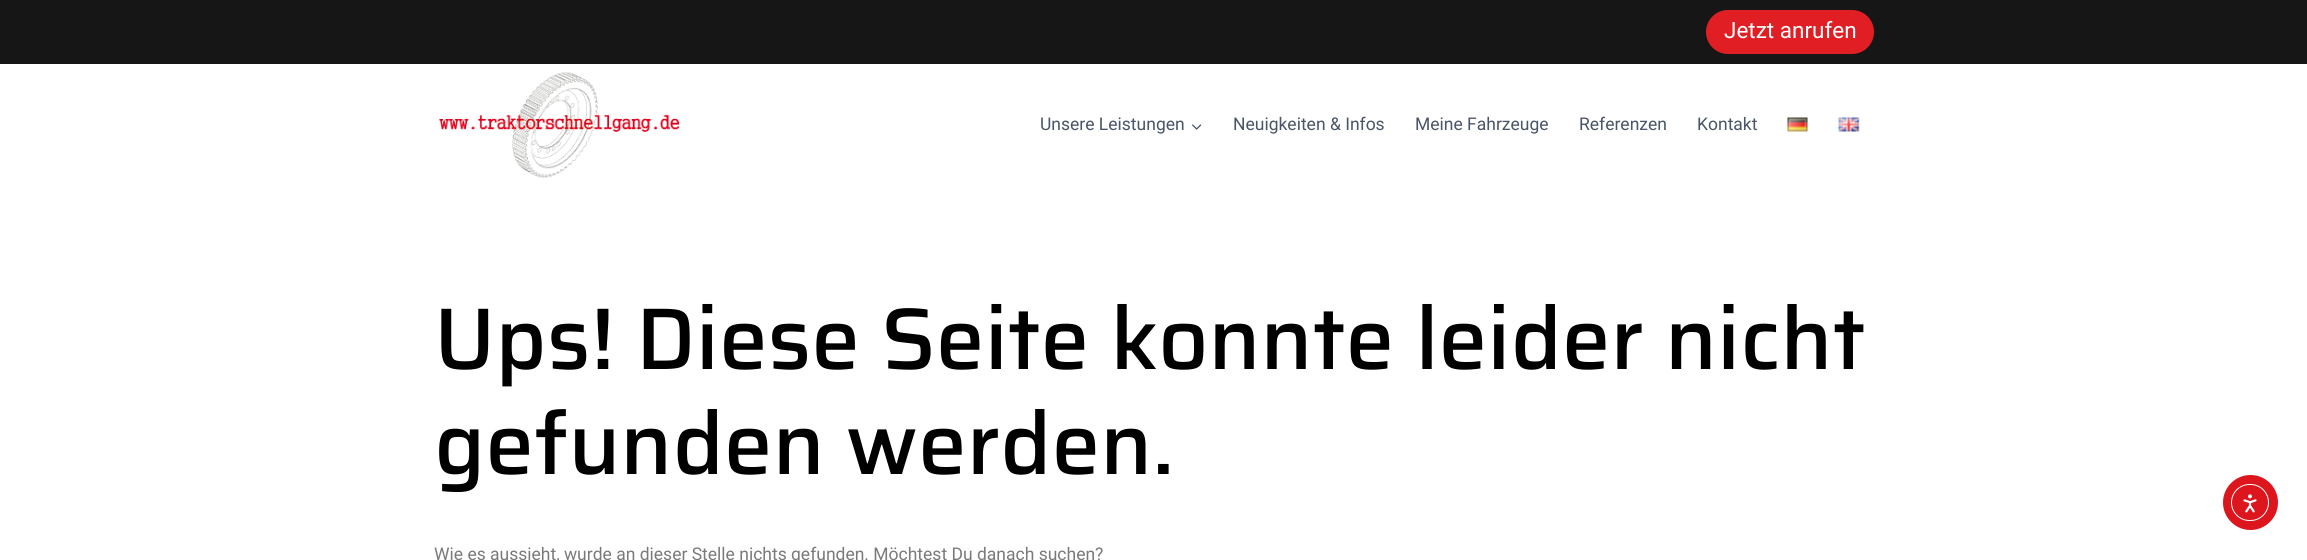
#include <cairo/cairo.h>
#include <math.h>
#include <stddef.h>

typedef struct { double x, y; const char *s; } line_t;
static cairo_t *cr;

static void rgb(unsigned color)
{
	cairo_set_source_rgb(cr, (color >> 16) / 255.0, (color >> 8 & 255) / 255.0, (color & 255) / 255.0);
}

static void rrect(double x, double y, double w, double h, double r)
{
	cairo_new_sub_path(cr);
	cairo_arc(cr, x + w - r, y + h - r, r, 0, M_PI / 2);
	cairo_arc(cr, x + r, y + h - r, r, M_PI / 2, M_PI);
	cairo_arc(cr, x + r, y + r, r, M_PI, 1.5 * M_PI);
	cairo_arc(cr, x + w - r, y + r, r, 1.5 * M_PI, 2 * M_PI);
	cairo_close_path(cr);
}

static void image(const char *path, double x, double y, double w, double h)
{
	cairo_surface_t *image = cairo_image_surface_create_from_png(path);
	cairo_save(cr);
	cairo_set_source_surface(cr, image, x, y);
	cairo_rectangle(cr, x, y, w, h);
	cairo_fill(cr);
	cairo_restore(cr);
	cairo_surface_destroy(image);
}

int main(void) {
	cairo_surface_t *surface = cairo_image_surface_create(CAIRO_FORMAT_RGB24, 2307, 560);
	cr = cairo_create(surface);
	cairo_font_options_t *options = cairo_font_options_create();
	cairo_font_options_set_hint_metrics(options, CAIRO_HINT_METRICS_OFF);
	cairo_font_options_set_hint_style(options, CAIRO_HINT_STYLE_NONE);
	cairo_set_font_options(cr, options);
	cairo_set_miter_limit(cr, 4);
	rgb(0xffffff);
	cairo_paint(cr);
	rgb(0x161616);
	cairo_rectangle(cr, 0, 0, 2307, 64);
	cairo_fill(cr);
	rgb(0xe21e25);
	rrect(1706, 10, 168, 44, 22);
	cairo_fill(cr);
	image("img/1.png", 439, 72, 241, 106);
	image("img/2.png", 1192, 124, 10, 6);
	image("img/3.png", 1787, 117, 21, 15);
	image("img/4.png", 1838, 117, 22, 15);
	rgb(0xdd151c);
	cairo_arc(cr, 2250.5, 502.5, 27.5, 0, 2 * M_PI);
	cairo_fill(cr);
	rrect(2231.5, 484.5, 37, 36, 18);
	rgb(0xffffff);
	cairo_set_line_width(cr, 1);
	cairo_stroke(cr);
	image("img/5.png", 2243, 494, 14, 19);
	cairo_select_font_face(cr, "Roboto", CAIRO_FONT_SLANT_NORMAL, CAIRO_FONT_WEIGHT_NORMAL);
	cairo_set_font_size(cr, 22.5);
	cairo_move_to(cr, 1724, 38);
	cairo_show_text(cr, "Jetzt anrufen");
	cairo_set_font_size(cr, 17.5);
	rgb(0x4a5568);
	{
		static const line_t items[] = {
			{1040, 130, "Unsere Leistungen"},
			{1233, 130, "Neuigkeiten & Infos"},
			{1415, 130, "Meine Fahrzeuge"},
			{1579, 130, "Referenzen"},
			{1697, 130, "Kontakt"},
		};
		for (size_t i = 0; i < sizeof items / sizeof *items; i++) {
			cairo_move_to(cr, items[i].x, items[i].y);
			cairo_show_text(cr, items[i].s);
		}
	}
	cairo_select_font_face(cr, "Saira Medium", CAIRO_FONT_SLANT_NORMAL, CAIRO_FONT_WEIGHT_NORMAL);
	cairo_set_font_size(cr, 87.5);
	rgb(0x000000);
	cairo_move_to(cr, 434, 369);
	cairo_show_text(cr, "Ups! Diese Seite konnte leider nicht");
	cairo_move_to(cr, 434, 474);
	cairo_show_text(cr, "gefunden werden.");
	cairo_select_font_face(cr, "Roboto", CAIRO_FONT_SLANT_NORMAL, CAIRO_FONT_WEIGHT_NORMAL);
	cairo_set_font_size(cr, 17.5);
	rgb(0x7a7a7a);
	cairo_move_to(cr, 434, 560);
	cairo_show_text(cr, "Wie es aussieht, wurde an dieser Stelle nichts gefunden. Möchtest Du danach suchen?");
	cairo_surface_write_to_png(surface, "page.png");
	cairo_font_options_destroy(options);
	cairo_destroy(cr);
	cairo_surface_destroy(surface);
	return 0;
}
